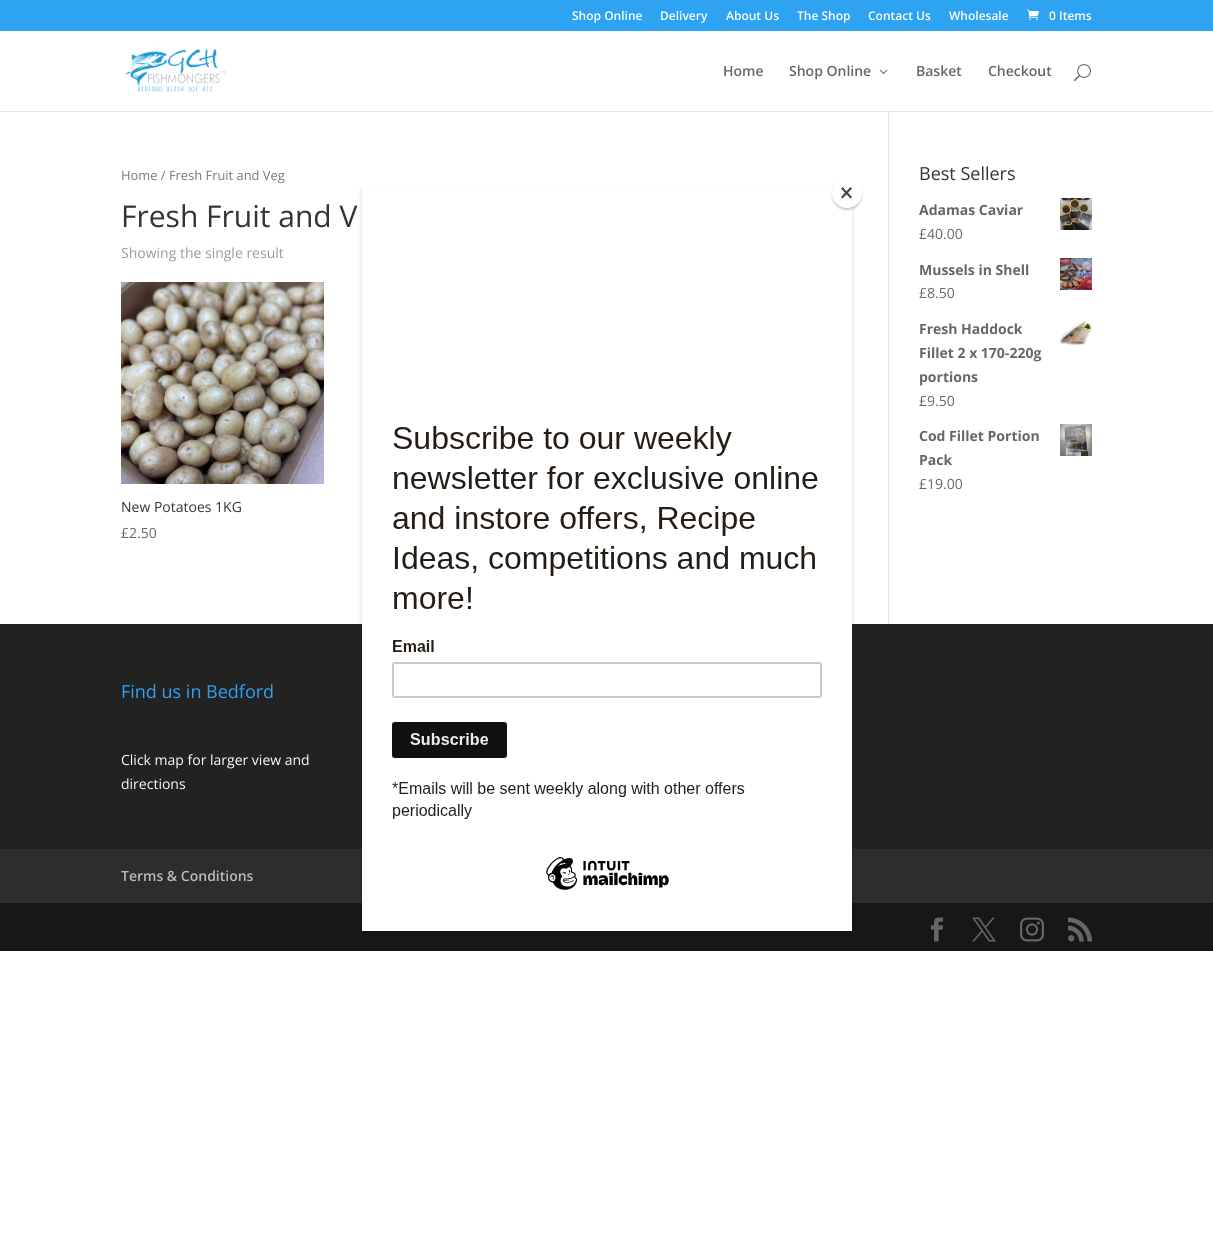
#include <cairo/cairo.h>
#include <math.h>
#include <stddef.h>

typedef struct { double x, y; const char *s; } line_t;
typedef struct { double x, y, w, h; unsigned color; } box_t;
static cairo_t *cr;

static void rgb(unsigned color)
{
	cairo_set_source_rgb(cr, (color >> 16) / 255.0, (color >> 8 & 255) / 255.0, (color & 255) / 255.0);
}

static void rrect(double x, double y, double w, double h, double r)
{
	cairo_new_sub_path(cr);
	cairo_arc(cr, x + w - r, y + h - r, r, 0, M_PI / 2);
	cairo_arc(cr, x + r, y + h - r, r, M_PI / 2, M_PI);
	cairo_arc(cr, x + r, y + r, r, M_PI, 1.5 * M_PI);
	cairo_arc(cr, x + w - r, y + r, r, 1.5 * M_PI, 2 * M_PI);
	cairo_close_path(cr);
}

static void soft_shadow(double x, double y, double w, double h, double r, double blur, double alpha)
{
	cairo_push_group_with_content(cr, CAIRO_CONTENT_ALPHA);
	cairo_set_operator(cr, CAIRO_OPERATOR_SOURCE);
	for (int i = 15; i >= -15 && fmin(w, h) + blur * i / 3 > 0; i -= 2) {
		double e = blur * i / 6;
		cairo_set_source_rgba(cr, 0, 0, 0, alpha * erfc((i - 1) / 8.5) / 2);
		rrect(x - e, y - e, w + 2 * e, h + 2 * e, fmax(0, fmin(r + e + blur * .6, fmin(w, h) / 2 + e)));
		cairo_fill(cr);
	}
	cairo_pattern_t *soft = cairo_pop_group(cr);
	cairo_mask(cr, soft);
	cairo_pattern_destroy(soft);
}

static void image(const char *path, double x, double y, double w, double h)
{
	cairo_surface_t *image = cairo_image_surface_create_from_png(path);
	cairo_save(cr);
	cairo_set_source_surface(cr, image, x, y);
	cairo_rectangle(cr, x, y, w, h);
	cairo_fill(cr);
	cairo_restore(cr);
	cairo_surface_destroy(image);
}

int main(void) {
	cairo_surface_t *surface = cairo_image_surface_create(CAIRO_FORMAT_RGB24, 1213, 1252);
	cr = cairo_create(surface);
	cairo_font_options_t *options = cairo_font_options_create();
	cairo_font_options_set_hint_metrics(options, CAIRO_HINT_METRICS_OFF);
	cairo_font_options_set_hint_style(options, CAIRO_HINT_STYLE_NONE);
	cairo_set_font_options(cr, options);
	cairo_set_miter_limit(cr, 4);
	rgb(0xffffff);
	cairo_paint(cr);
	rgb(0xe6e6e6);
	cairo_rectangle(cr, 0, 111, 1213, 1);
	cairo_fill(cr);
	rgb(0x2ea3f2);
	cairo_rectangle(cr, 0, 0, 1213, 31);
	cairo_fill(cr);
	image("img/1.png", 1027, 9, 12, 11);
	rgb(0xe2e2e2);
	cairo_rectangle(cr, 888, 106, 1, 518);
	cairo_fill(cr);
	rgb(0xffffff);
	cairo_rectangle(cr, 888, 106, 1, 5);
	cairo_fill(cr);
	image("img/2.png", 125, 49, 100, 43);
	image("img/3.png", 879, 69, 9, 5);
	image("img/4.png", 1074, 64, 17, 18);
	rgb(0xcbcbcb);
	cairo_rectangle(cr, 888, 111, 1, 1);
	cairo_fill(cr);
	image("img/5.png", 121, 282, 203, 202);
	image("img/6.png", 1060, 198, 32, 32);
	image("img/7.png", 1060, 258, 32, 32);
	image("img/8.png", 1060, 321, 32, 25);
	image("img/9.png", 1060, 424, 32, 32);
	{
		static const box_t items[] = {
			{0, 624, 1213, 225, 0x222222},
			{0, 849, 1213, 54, 0x2d2d2d},
			{0, 903, 1213, 48, 0x171717},
		};
		for (size_t i = 0; i < sizeof items / sizeof *items; i++) {
			rgb(items[i].color);
			cairo_rectangle(cr, items[i].x, items[i].y, items[i].w, items[i].h);
			cairo_fill(cr);
		}
	}
	image("img/10.png", 931, 917, 12, 25);
	image("img/11.png", 972, 917, 24, 25);
	image("img/12.png", 1020, 917, 24, 25);
	image("img/13.png", 1068, 917, 24, 25);
	cairo_save(cr);
	cairo_set_fill_rule(cr, CAIRO_FILL_RULE_EVEN_ODD);
	cairo_new_path(cr);
	cairo_move_to(cr, 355, 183);
	cairo_line_to(cr, 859, 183);
	cairo_line_to(cr, 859, 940);
	cairo_line_to(cr, 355, 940);
	cairo_close_path(cr);
	cairo_move_to(cr, 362, 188);
	cairo_line_to(cr, 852, 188);
	cairo_line_to(cr, 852, 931);
	cairo_line_to(cr, 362, 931);
	cairo_close_path(cr);
	cairo_clip(cr);
	rgb(0x000000);
	soft_shadow(362, 190, 490, 743, 0, 2, 0.2);
	cairo_restore(cr);
	image("img/14.png", 362, 210, 490, 721);
	rgb(0x000000);
	soft_shadow(832, 180, 30, 30, 15, 1, 0.2);
	rgb(0xffffff);
	cairo_arc(cr, 847, 193, 15, 0, 2 * M_PI);
	cairo_fill(cr);
	rgb(0x414141);
	cairo_new_path(cr);
	cairo_move_to(cr, 850.5, 187);
	cairo_line_to(cr, 852, 188.5);
	cairo_line_to(cr, 842.5, 198.5);
	cairo_line_to(cr, 841, 197);
	cairo_close_path(cr);
	cairo_fill(cr);
	cairo_new_path(cr);
	cairo_move_to(cr, 841, 188.5);
	cairo_line_to(cr, 842.5, 187);
	cairo_line_to(cr, 852, 197);
	cairo_line_to(cr, 850.5, 198.5);
	cairo_close_path(cr);
	cairo_fill(cr);
	cairo_select_font_face(cr, "Open Sans SemiBold", CAIRO_FONT_SLANT_NORMAL, CAIRO_FONT_WEIGHT_NORMAL);
	cairo_set_font_size(cr, 12);
	rgb(0xffffff);
	{
		static const line_t items[] = {
			{572, 20, "Shop Online"},
			{660, 20, "Delivery"},
			{726, 20, "About Us"},
			{797, 20, "The Shop"},
			{868, 20, "Contact Us"},
			{949, 20, "Wholesale"},
			{1049, 20, "0 Items"},
		};
		for (size_t i = 0; i < sizeof items / sizeof *items; i++) {
			cairo_move_to(cr, items[i].x, items[i].y);
			cairo_show_text(cr, items[i].s);
		}
	}
	cairo_set_font_size(cr, 14);
	rgb(0x666666);
	{
		static const line_t items[] = {
			{723, 76, "Home"},
			{789, 76, "Shop Online"},
			{916, 76, "Basket"},
			{988, 76, "Checkout"},
		};
		for (size_t i = 0; i < sizeof items / sizeof *items; i++) {
			cairo_move_to(cr, items[i].x, items[i].y);
			cairo_show_text(cr, items[i].s);
		}
	}
	cairo_select_font_face(cr, "Open Sans", CAIRO_FONT_SLANT_NORMAL, CAIRO_FONT_WEIGHT_NORMAL);
	cairo_set_font_size(cr, 12.9);
	rgb(0x767676);
	cairo_move_to(cr, 121, 180);
	cairo_show_text(cr, "Home / Fresh Fruit and Veg");
	cairo_set_font_size(cr, 30);
	rgb(0x333333);
	cairo_move_to(cr, 121, 227);
	cairo_show_text(cr, "Fresh Fruit and V");
	cairo_set_font_size(cr, 14);
	rgb(0x999999);
	cairo_move_to(cr, 121, 258);
	cairo_show_text(cr, "Showing the single result");
	rgb(0x333333);
	cairo_move_to(cr, 121, 512);
	cairo_show_text(cr, "New Potatoes 1KG");
	rgb(0x666666);
	cairo_move_to(cr, 121, 538);
	cairo_show_text(cr, "£2.50");
	cairo_set_font_size(cr, 18);
	rgb(0x333333);
	cairo_move_to(cr, 919, 180);
	cairo_show_text(cr, "Best Sellers");
	cairo_select_font_face(cr, "Open Sans", CAIRO_FONT_SLANT_NORMAL, CAIRO_FONT_WEIGHT_BOLD);
	cairo_set_font_size(cr, 14);
	rgb(0x666666);
	cairo_move_to(cr, 919, 215);
	cairo_show_text(cr, "Adamas Caviar");
	cairo_select_font_face(cr, "Open Sans", CAIRO_FONT_SLANT_NORMAL, CAIRO_FONT_WEIGHT_NORMAL);
	cairo_move_to(cr, 919, 239);
	cairo_show_text(cr, "£40.00");
	cairo_select_font_face(cr, "Open Sans", CAIRO_FONT_SLANT_NORMAL, CAIRO_FONT_WEIGHT_BOLD);
	cairo_move_to(cr, 919, 275);
	cairo_show_text(cr, "Mussels in Shell");
	cairo_select_font_face(cr, "Open Sans", CAIRO_FONT_SLANT_NORMAL, CAIRO_FONT_WEIGHT_NORMAL);
	cairo_move_to(cr, 919, 298);
	cairo_show_text(cr, "£8.50");
	cairo_select_font_face(cr, "Open Sans", CAIRO_FONT_SLANT_NORMAL, CAIRO_FONT_WEIGHT_BOLD);
	{
		static const line_t items[] = {
			{919, 334, "Fresh Haddock"},
			{919, 358, "Fillet 2 x 170-220g"},
			{919, 382, "portions"},
		};
		for (size_t i = 0; i < sizeof items / sizeof *items; i++) {
			cairo_move_to(cr, items[i].x, items[i].y);
			cairo_show_text(cr, items[i].s);
		}
	}
	cairo_select_font_face(cr, "Open Sans", CAIRO_FONT_SLANT_NORMAL, CAIRO_FONT_WEIGHT_NORMAL);
	cairo_move_to(cr, 919, 406);
	cairo_show_text(cr, "£9.50");
	cairo_select_font_face(cr, "Open Sans", CAIRO_FONT_SLANT_NORMAL, CAIRO_FONT_WEIGHT_BOLD);
	cairo_move_to(cr, 919, 441);
	cairo_show_text(cr, "Cod Fillet Portion");
	cairo_move_to(cr, 919, 465);
	cairo_show_text(cr, "Pack");
	cairo_select_font_face(cr, "Open Sans", CAIRO_FONT_SLANT_NORMAL, CAIRO_FONT_WEIGHT_NORMAL);
	cairo_move_to(cr, 919, 489);
	cairo_show_text(cr, "£19.00");
	cairo_set_font_size(cr, 18);
	rgb(0x2ea3f2);
	cairo_move_to(cr, 121, 698);
	cairo_show_text(cr, "Find us in Bedford");
	cairo_set_font_size(cr, 14);
	rgb(0xffffff);
	cairo_move_to(cr, 121, 765);
	cairo_show_text(cr, "Click map for larger view and");
	cairo_move_to(cr, 121, 789);
	cairo_show_text(cr, "directions");
	cairo_select_font_face(cr, "Open Sans SemiBold", CAIRO_FONT_SLANT_NORMAL, CAIRO_FONT_WEIGHT_NORMAL);
	rgb(0xbbbbbb);
	cairo_move_to(cr, 121, 881);
	cairo_show_text(cr, "Terms & Conditions");
	cairo_surface_write_to_png(surface, "page.png");
	cairo_font_options_destroy(options);
	cairo_destroy(cr);
	cairo_surface_destroy(surface);
	return 0;
}
